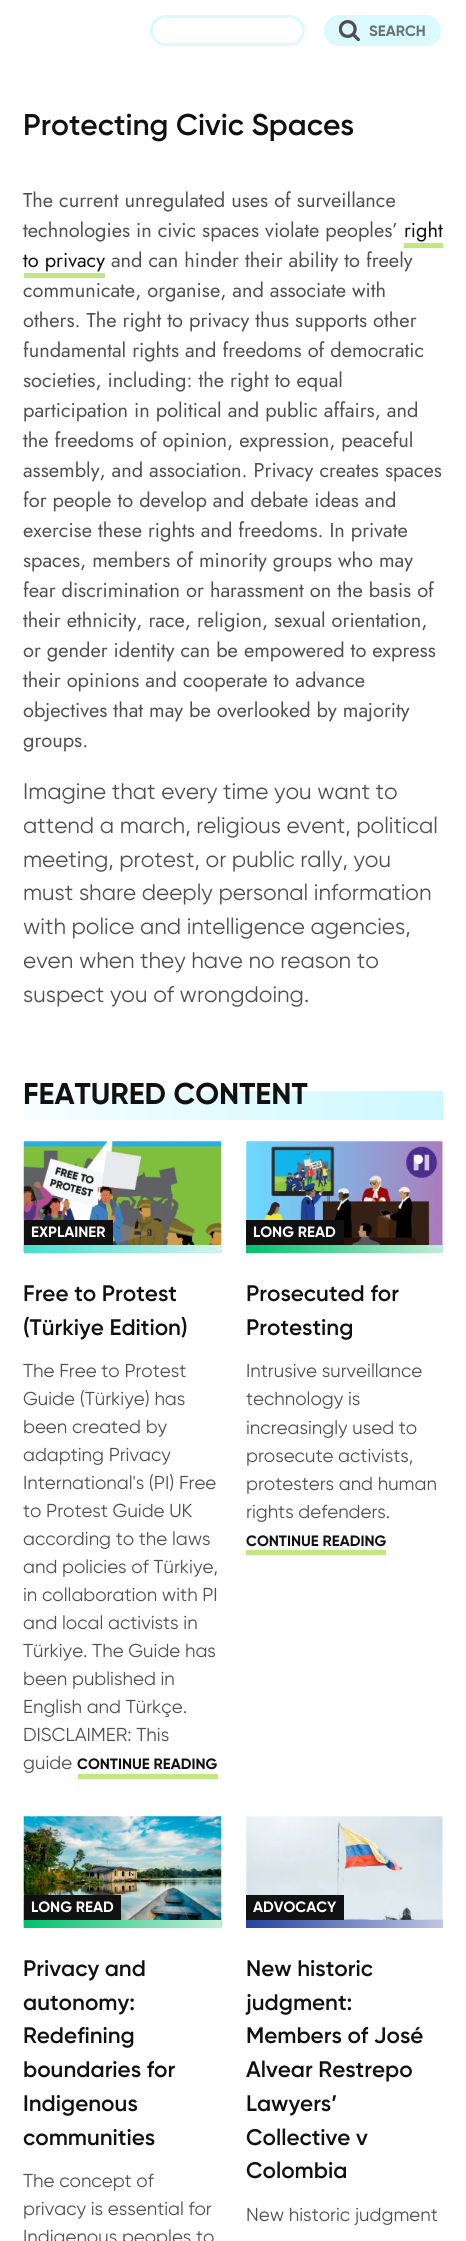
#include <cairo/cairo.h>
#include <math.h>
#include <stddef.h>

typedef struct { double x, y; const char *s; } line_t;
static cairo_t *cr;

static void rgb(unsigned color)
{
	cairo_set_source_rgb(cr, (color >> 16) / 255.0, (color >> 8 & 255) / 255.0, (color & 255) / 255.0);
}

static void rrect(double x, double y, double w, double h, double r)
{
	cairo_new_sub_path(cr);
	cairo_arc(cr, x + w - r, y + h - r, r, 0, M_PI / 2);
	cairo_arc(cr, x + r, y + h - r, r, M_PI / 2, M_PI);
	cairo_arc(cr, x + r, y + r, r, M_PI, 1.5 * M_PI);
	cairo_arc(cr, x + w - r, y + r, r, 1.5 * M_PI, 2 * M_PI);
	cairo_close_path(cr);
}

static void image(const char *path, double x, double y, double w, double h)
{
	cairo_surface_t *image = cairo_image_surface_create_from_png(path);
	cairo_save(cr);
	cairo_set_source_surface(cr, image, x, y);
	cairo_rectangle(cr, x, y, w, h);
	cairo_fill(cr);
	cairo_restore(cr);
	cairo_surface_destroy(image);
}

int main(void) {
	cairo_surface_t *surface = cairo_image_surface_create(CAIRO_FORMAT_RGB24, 466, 2241);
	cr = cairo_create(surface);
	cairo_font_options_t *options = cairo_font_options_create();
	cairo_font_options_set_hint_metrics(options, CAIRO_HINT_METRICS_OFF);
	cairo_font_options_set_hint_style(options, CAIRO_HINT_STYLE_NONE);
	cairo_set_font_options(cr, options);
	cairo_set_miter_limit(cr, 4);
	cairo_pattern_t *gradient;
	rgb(0xffffff);
	cairo_paint(cr);
	rrect(151.5, 16.5, 152, 28, 14);
	rgb(0xdafaff);
	cairo_set_line_width(cr, 3);
	cairo_stroke(cr);
	rrect(324, 15, 117, 31, 15.5);
	cairo_fill(cr);
	image("img/1.png", 339, 20, 21, 21);
	rrect(325.5, 16.5, 114, 28, 14);
	cairo_stroke(cr);
	rgb(0xc0e880);
	cairo_rectangle(cr, 404, 243, 39, 5);
	cairo_fill(cr);
	cairo_rectangle(cr, 24, 273, 81, 5);
	cairo_fill(cr);
	gradient = cairo_pattern_create_linear(443, 1106, 24, 1106);
	cairo_pattern_add_color_stop_rgba(gradient, 0, 0.8, 0.976, 1, 1);
	cairo_pattern_add_color_stop_rgba(gradient, 1, 0.973, 0.996, 1, 1);
	cairo_set_source(cr, gradient);
	cairo_pattern_destroy(gradient);
	cairo_rectangle(cr, 24, 1091, 419, 29);
	cairo_fill(cr);
	image("img/2.png", 23, 1141, 199, 112);
	rgb(0x111111);
	cairo_rectangle(cr, 24, 1220, 89, 25);
	cairo_fill(cr);
	gradient = cairo_pattern_create_linear(24, 1249, 221, 1249);
	cairo_pattern_add_color_stop_rgba(gradient, 0, 0.263, 0.875, 0.812, 1);
	cairo_pattern_add_color_stop_rgba(gradient, 1, 0.816, 0.957, 0.937, 1);
	cairo_set_source(cr, gradient);
	cairo_pattern_destroy(gradient);
	cairo_rectangle(cr, 24, 1245, 197, 8);
	cairo_fill(cr);
	rgb(0xc0e880);
	cairo_rectangle(cr, 78, 1774, 140, 5);
	cairo_fill(cr);
	image("img/3.png", 246, 1141, 197, 104);
	rgb(0x111111);
	cairo_rectangle(cr, 246, 1220, 98, 25);
	cairo_fill(cr);
	gradient = cairo_pattern_create_linear(246, 1249, 443, 1249);
	cairo_pattern_add_color_stop_rgba(gradient, 0, 0, 0.757, 0.416, 1);
	cairo_pattern_add_color_stop_rgba(gradient, 1, 0.753, 0.933, 0.843, 1);
	cairo_set_source(cr, gradient);
	cairo_pattern_destroy(gradient);
	cairo_rectangle(cr, 246, 1245, 197, 8);
	cairo_fill(cr);
	rgb(0xc0e880);
	cairo_rectangle(cr, 246, 1550, 140, 5);
	cairo_fill(cr);
	image("img/4.png", 23, 1816, 199, 112);
	rgb(0x111111);
	cairo_rectangle(cr, 24, 1895, 97, 25);
	cairo_fill(cr);
	gradient = cairo_pattern_create_linear(24, 1924, 221, 1924);
	cairo_pattern_add_color_stop_rgba(gradient, 0, 0, 0.757, 0.416, 1);
	cairo_pattern_add_color_stop_rgba(gradient, 1, 0.753, 0.933, 0.843, 1);
	cairo_set_source(cr, gradient);
	cairo_pattern_destroy(gradient);
	cairo_rectangle(cr, 24, 1920, 197, 8);
	cairo_fill(cr);
	image("img/5.png", 246, 1816, 197, 104);
	rgb(0x111111);
	cairo_rectangle(cr, 246, 1895, 98, 25);
	cairo_fill(cr);
	gradient = cairo_pattern_create_linear(246, 1924, 443, 1924);
	cairo_pattern_add_color_stop_rgba(gradient, 0, 0.149, 0.259, 0.627, 1);
	cairo_pattern_add_color_stop_rgba(gradient, 1, 0.745, 0.78, 0.89, 1);
	cairo_set_source(cr, gradient);
	cairo_pattern_destroy(gradient);
	cairo_rectangle(cr, 246, 1920, 197, 8);
	cairo_fill(cr);
	cairo_select_font_face(cr, "Gilroy", CAIRO_FONT_SLANT_NORMAL, CAIRO_FONT_WEIGHT_BOLD);
	cairo_set_font_size(cr, 15);
	rgb(0x6c7273);
	cairo_move_to(cr, 369, 36);
	cairo_show_text(cr, "SEARCH");
	cairo_select_font_face(cr, "Gilroy SemiBold", CAIRO_FONT_SLANT_NORMAL, CAIRO_FONT_WEIGHT_NORMAL);
	cairo_set_font_size(cr, 30);
	rgb(0x111111);
	cairo_move_to(cr, 23, 135);
	cairo_show_text(cr, "Protecting Civic Spaces");
	cairo_select_font_face(cr, "Jost", CAIRO_FONT_SLANT_NORMAL, CAIRO_FONT_WEIGHT_NORMAL);
	cairo_set_font_size(cr, 20);
	rgb(0x505050);
	cairo_move_to(cr, 23, 207);
	cairo_show_text(cr, "The current unregulated uses of surveillance");
	cairo_move_to(cr, 23, 237);
	cairo_show_text(cr, "technologies in civic spaces violate peoples’");
	rgb(0x111111);
	cairo_move_to(cr, 404, 237);
	cairo_show_text(cr, "right");
	cairo_move_to(cr, 23, 267);
	cairo_show_text(cr, "to privacy");
	rgb(0x505050);
	{
		static const line_t items[] = {
			{111, 267, "and can hinder their ability to freely"},
			{23, 297, "communicate, organise, and associate with"},
			{23, 327, "others. The right to privacy thus supports other"},
			{23, 357, "fundamental rights and freedoms of democratic"},
			{23, 387, "societies, including: the right to equal"},
			{23, 417, "participation in political and public affairs, and"},
			{23, 447, "the freedoms of opinion, expression, peaceful"},
			{23, 477, "assembly, and association. Privacy creates spaces"},
			{23, 507, "for people to develop and debate ideas and"},
			{23, 537, "exercise these rights and freedoms. In private"},
			{23, 567, "spaces, members of minority groups who may"},
			{23, 597, "fear discrimination or harassment on the basis of"},
			{23, 627, "their ethnicity, race, religion, sexual orientation,"},
			{23, 657, "or gender identity can be empowered to express"},
			{23, 687, "their opinions and cooperate to advance"},
			{23, 717, "objectives that may be overlooked by majority"},
			{23, 747, "groups."},
		};
		for (size_t i = 0; i < sizeof items / sizeof *items; i++) {
			cairo_move_to(cr, items[i].x, items[i].y);
			cairo_show_text(cr, items[i].s);
		}
	}
	cairo_select_font_face(cr, "gilroy", CAIRO_FONT_SLANT_NORMAL, CAIRO_FONT_WEIGHT_NORMAL);
	cairo_set_font_size(cr, 22.5);
	{
		static const line_t items[] = {
			{23, 799, "Imagine that every time you want to"},
			{23, 833, "attend a march, religious event, political"},
			{23, 867, "meeting, protest, or public rally, you"},
			{23, 900, "must share deeply personal information"},
			{23, 934, "with police and intelligence agencies,"},
			{23, 968, "even when they have no reason to"},
			{23, 1002, "suspect you of wrongdoing."},
		};
		for (size_t i = 0; i < sizeof items / sizeof *items; i++) {
			cairo_move_to(cr, items[i].x, items[i].y);
			cairo_show_text(cr, items[i].s);
		}
	}
	cairo_select_font_face(cr, "Gilroy", CAIRO_FONT_SLANT_NORMAL, CAIRO_FONT_WEIGHT_BOLD);
	cairo_set_font_size(cr, 30);
	rgb(0x111111);
	cairo_move_to(cr, 23, 1104);
	cairo_show_text(cr, "FEATURED CONTENT");
	cairo_set_font_size(cr, 15);
	rgb(0xffffff);
	cairo_move_to(cr, 31, 1237);
	cairo_show_text(cr, "EXPLAINER");
	cairo_select_font_face(cr, "Gilroy SemiBold", CAIRO_FONT_SLANT_NORMAL, CAIRO_FONT_WEIGHT_NORMAL);
	cairo_set_font_size(cr, 22.5);
	rgb(0x111111);
	cairo_move_to(cr, 23, 1301);
	cairo_show_text(cr, "Free to Protest");
	cairo_move_to(cr, 23, 1335);
	cairo_show_text(cr, "(Türkiye Edition)");
	cairo_select_font_face(cr, "gilroy", CAIRO_FONT_SLANT_NORMAL, CAIRO_FONT_WEIGHT_NORMAL);
	cairo_set_font_size(cr, 18.75);
	rgb(0x505050);
	{
		static const line_t items[] = {
			{23, 1377, "The Free to Protest"},
			{23, 1405, "Guide (Türkiye) has"},
			{23, 1433, "been created by"},
			{23, 1461, "adapting Privacy"},
			{23, 1489, "International's (PI) Free"},
			{23, 1517, "to Protest Guide UK"},
			{23, 1545, "according to the laws"},
			{23, 1573, "and policies of Türkiye,"},
			{23, 1601, "in collaboration with PI"},
			{23, 1629, "and local activists in"},
			{23, 1657, "Türkiye. The Guide has"},
			{23, 1685, "been published in"},
			{23, 1713, "English and Türkçe."},
			{23, 1741, "DISCLAIMER: This"},
			{23, 1769, "guide"},
		};
		for (size_t i = 0; i < sizeof items / sizeof *items; i++) {
			cairo_move_to(cr, items[i].x, items[i].y);
			cairo_show_text(cr, items[i].s);
		}
	}
	cairo_select_font_face(cr, "Gilroy", CAIRO_FONT_SLANT_NORMAL, CAIRO_FONT_WEIGHT_BOLD);
	cairo_set_font_size(cr, 15);
	rgb(0x111111);
	cairo_move_to(cr, 77, 1769);
	cairo_show_text(cr, "CONTINUE READING");
	rgb(0xffffff);
	cairo_move_to(cr, 253, 1237);
	cairo_show_text(cr, "LONG READ");
	cairo_select_font_face(cr, "Gilroy SemiBold", CAIRO_FONT_SLANT_NORMAL, CAIRO_FONT_WEIGHT_NORMAL);
	cairo_set_font_size(cr, 22.5);
	rgb(0x111111);
	cairo_move_to(cr, 246, 1301);
	cairo_show_text(cr, "Prosecuted for");
	cairo_move_to(cr, 246, 1335);
	cairo_show_text(cr, "Protesting");
	cairo_select_font_face(cr, "gilroy", CAIRO_FONT_SLANT_NORMAL, CAIRO_FONT_WEIGHT_NORMAL);
	cairo_set_font_size(cr, 18.75);
	rgb(0x505050);
	{
		static const line_t items[] = {
			{246, 1377, "Intrusive surveillance"},
			{246, 1405, "technology is"},
			{246, 1434, "increasingly used to"},
			{246, 1462, "prosecute activists,"},
			{246, 1490, "protesters and human"},
			{246, 1518, "rights defenders."},
		};
		for (size_t i = 0; i < sizeof items / sizeof *items; i++) {
			cairo_move_to(cr, items[i].x, items[i].y);
			cairo_show_text(cr, items[i].s);
		}
	}
	cairo_select_font_face(cr, "Gilroy", CAIRO_FONT_SLANT_NORMAL, CAIRO_FONT_WEIGHT_BOLD);
	cairo_set_font_size(cr, 15);
	rgb(0x111111);
	cairo_move_to(cr, 246, 1546);
	cairo_show_text(cr, "CONTINUE READING");
	rgb(0xffffff);
	cairo_move_to(cr, 31, 1912);
	cairo_show_text(cr, "LONG READ");
	cairo_select_font_face(cr, "Gilroy SemiBold", CAIRO_FONT_SLANT_NORMAL, CAIRO_FONT_WEIGHT_NORMAL);
	cairo_set_font_size(cr, 22.5);
	rgb(0x111111);
	{
		static const line_t items[] = {
			{23, 1976, "Privacy and"},
			{23, 2010, "autonomy:"},
			{23, 2043, "Redefining"},
			{23, 2077, "boundaries for"},
			{23, 2111, "Indigenous"},
			{23, 2145, "communities"},
		};
		for (size_t i = 0; i < sizeof items / sizeof *items; i++) {
			cairo_move_to(cr, items[i].x, items[i].y);
			cairo_show_text(cr, items[i].s);
		}
	}
	cairo_select_font_face(cr, "gilroy", CAIRO_FONT_SLANT_NORMAL, CAIRO_FONT_WEIGHT_NORMAL);
	cairo_set_font_size(cr, 18.75);
	rgb(0x505050);
	{
		static const line_t items[] = {
			{23, 2187, "The concept of"},
			{23, 2215, "privacy is essential for"},
			{23, 2243, "Indigenous peoples to"},
		};
		for (size_t i = 0; i < sizeof items / sizeof *items; i++) {
			cairo_move_to(cr, items[i].x, items[i].y);
			cairo_show_text(cr, items[i].s);
		}
	}
	cairo_select_font_face(cr, "Gilroy", CAIRO_FONT_SLANT_NORMAL, CAIRO_FONT_WEIGHT_BOLD);
	cairo_set_font_size(cr, 15);
	rgb(0xffffff);
	cairo_move_to(cr, 253, 1912);
	cairo_show_text(cr, "ADVOCACY");
	cairo_select_font_face(cr, "Gilroy SemiBold", CAIRO_FONT_SLANT_NORMAL, CAIRO_FONT_WEIGHT_NORMAL);
	cairo_set_font_size(cr, 22.5);
	rgb(0x111111);
	{
		static const line_t items[] = {
			{246, 1976, "New historic"},
			{246, 2010, "judgment:"},
			{246, 2043, "Members of José"},
			{246, 2077, "Alvear Restrepo"},
			{246, 2111, "Lawyers’"},
			{246, 2145, "Collective v"},
			{246, 2178, "Colombia"},
		};
		for (size_t i = 0; i < sizeof items / sizeof *items; i++) {
			cairo_move_to(cr, items[i].x, items[i].y);
			cairo_show_text(cr, items[i].s);
		}
	}
	cairo_select_font_face(cr, "gilroy", CAIRO_FONT_SLANT_NORMAL, CAIRO_FONT_WEIGHT_NORMAL);
	cairo_set_font_size(cr, 18.75);
	rgb(0x505050);
	cairo_move_to(cr, 246, 2221);
	cairo_show_text(cr, "New historic judgment");
	cairo_surface_write_to_png(surface, "page.png");
	cairo_font_options_destroy(options);
	cairo_destroy(cr);
	cairo_surface_destroy(surface);
	return 0;
}
